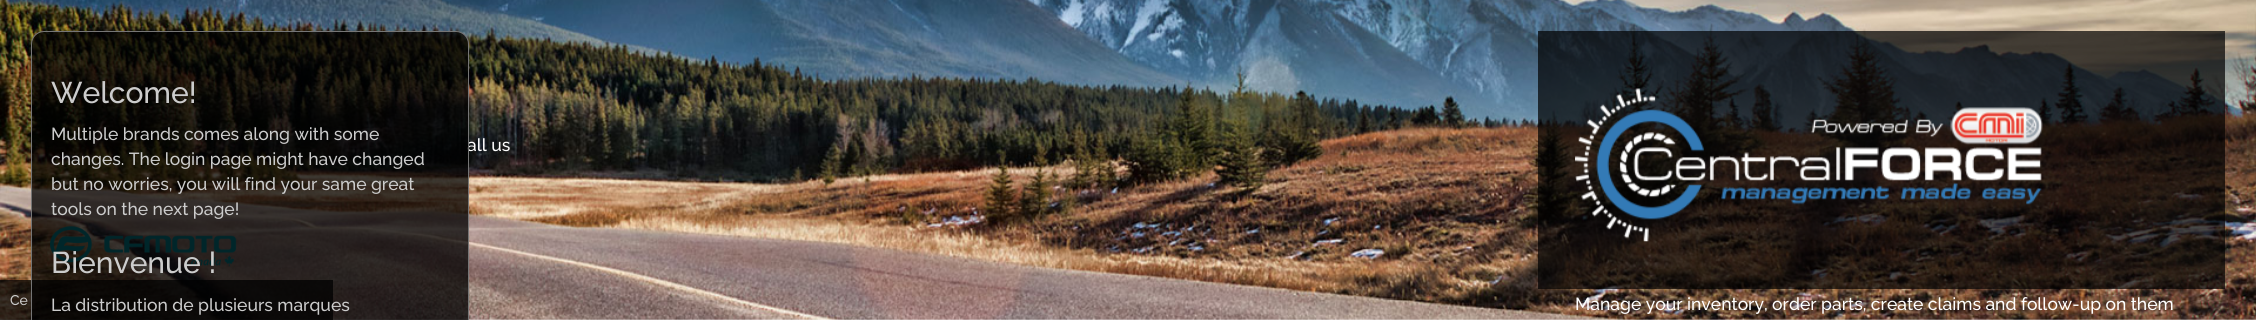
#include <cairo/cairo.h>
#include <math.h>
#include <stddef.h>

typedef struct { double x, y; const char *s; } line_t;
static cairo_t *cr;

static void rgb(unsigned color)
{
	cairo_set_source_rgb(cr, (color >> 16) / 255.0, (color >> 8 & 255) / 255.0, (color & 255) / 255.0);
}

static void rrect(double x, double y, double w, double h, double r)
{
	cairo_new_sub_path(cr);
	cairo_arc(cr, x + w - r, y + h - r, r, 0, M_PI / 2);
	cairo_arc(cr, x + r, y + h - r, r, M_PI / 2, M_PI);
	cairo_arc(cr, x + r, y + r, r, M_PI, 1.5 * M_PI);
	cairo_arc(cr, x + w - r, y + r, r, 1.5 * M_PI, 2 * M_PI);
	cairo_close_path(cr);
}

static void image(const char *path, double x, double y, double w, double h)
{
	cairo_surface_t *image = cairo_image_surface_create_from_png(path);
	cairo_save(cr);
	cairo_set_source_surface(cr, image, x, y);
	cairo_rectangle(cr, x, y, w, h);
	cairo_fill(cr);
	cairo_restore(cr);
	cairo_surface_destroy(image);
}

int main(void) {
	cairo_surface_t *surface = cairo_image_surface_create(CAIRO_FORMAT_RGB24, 2256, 320);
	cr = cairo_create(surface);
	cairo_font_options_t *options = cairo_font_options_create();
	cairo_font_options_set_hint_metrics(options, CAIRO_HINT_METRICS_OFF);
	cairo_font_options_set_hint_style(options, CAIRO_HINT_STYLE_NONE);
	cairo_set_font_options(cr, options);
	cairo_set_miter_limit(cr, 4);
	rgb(0xffffff);
	cairo_paint(cr);
	image("img/1.png", 0, 0, 2256, 320);
	cairo_set_source_rgba(cr, 0, 0, 0, 0.75);
	cairo_rectangle(cr, 0, 280, 333, 40);
	cairo_fill(cr);
	cairo_set_source_rgba(cr, 0, 0, 0, 0.7);
	cairo_rectangle(cr, 1538, 31, 687, 258);
	cairo_fill(cr);
	image("img/2.png", 50, 226, 187, 41);
	image("img/3.png", 1575, 88, 468, 154);
	cairo_select_font_face(cr, "Raleway Thin", CAIRO_FONT_SLANT_NORMAL, CAIRO_FONT_WEIGHT_NORMAL);
	cairo_set_font_size(cr, 14);
	rgb(0xcccccc);
	cairo_move_to(cr, 10, 305);
	cairo_show_text(cr, "Ce");
	cairo_set_font_size(cr, 17.5);
	rgb(0xffffff);
	cairo_move_to(cr, 467, 151);
	cairo_show_text(cr, "all us");
	cairo_set_source_rgba(cr, 0, 0, 0, 0.75);
	rrect(31.5, 31.5, 437, 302, 12.5);
	cairo_fill_preserve(cr);
	rgb(0x757575);
	cairo_set_line_width(cr, 1);
	cairo_stroke(cr);
	rgb(0xcccccc);
	cairo_move_to(cr, 51, 311);
	cairo_show_text(cr, "La distribution de plusieurs marques");
	cairo_set_font_size(cr, 30);
	cairo_move_to(cr, 51, 273);
	cairo_show_text(cr, "Bienvenue !");
	cairo_set_font_size(cr, 17.5);
	{
		static const line_t items[] = {
			{51, 215, "tools on the next page!"},
			{51, 190, "but no worries, you will find your same great"},
			{51, 165, "changes. The login page might have changed"},
			{51, 140, "Multiple brands comes along with some"},
		};
		for (size_t i = 0; i < sizeof items / sizeof *items; i++) {
			cairo_move_to(cr, items[i].x, items[i].y);
			cairo_show_text(cr, items[i].s);
		}
	}
	cairo_set_font_size(cr, 30);
	cairo_move_to(cr, 51, 103);
	cairo_show_text(cr, "Welcome!");
	cairo_set_font_size(cr, 17.5);
	rgb(0xffffff);
	cairo_move_to(cr, 1575, 310);
	cairo_show_text(cr, "Manage your inventory, order parts, create claims and follow-up on them");
	cairo_surface_write_to_png(surface, "page.png");
	cairo_font_options_destroy(options);
	cairo_destroy(cr);
	cairo_surface_destroy(surface);
	return 0;
}
